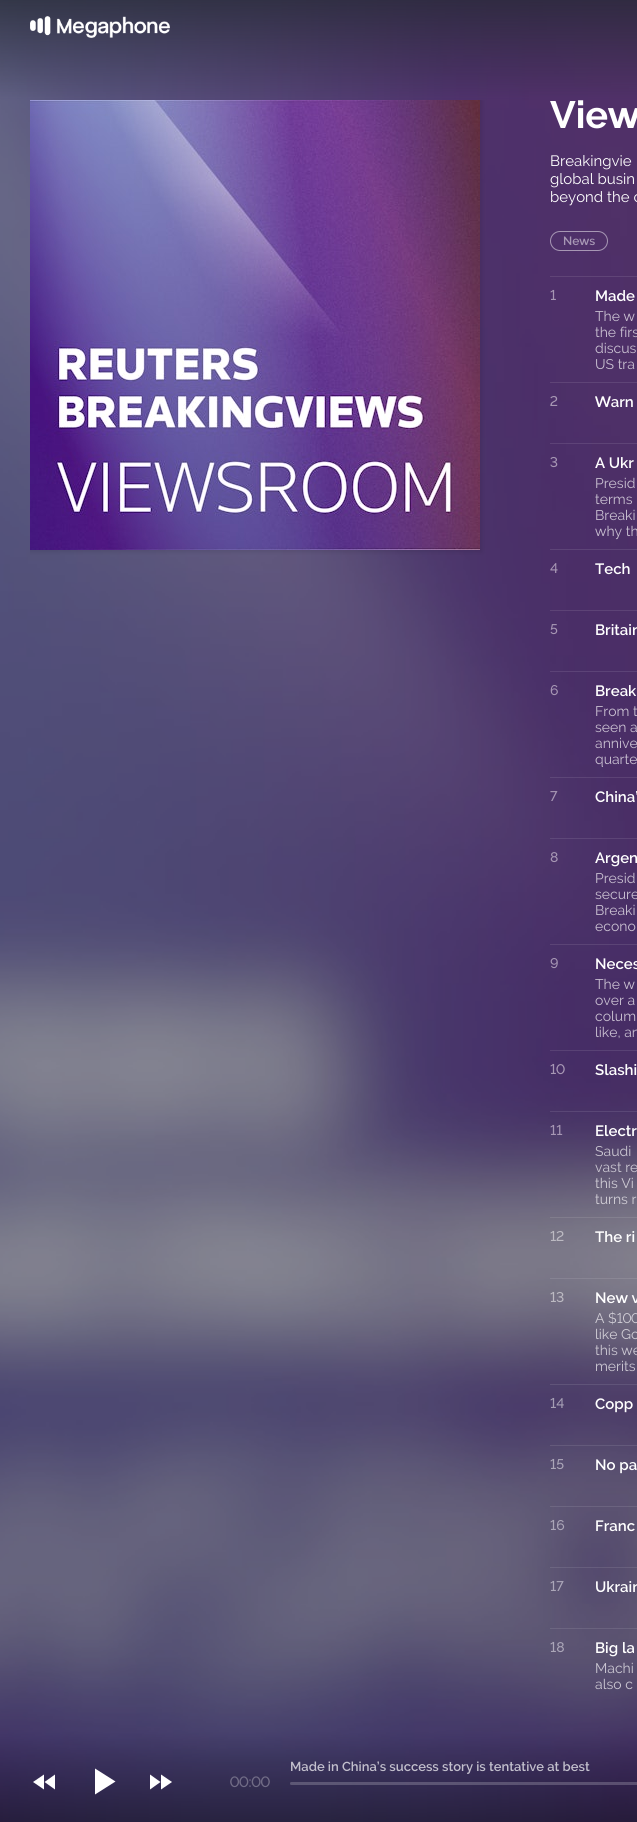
#include <cairo/cairo.h>
#include <math.h>
#include <stddef.h>

typedef struct { double x, y; const char *s; } line_t;
static cairo_t *cr;

static void rgb(unsigned color)
{
	cairo_set_source_rgb(cr, (color >> 16) / 255.0, (color >> 8 & 255) / 255.0, (color & 255) / 255.0);
}

static void rrect(double x, double y, double w, double h, double r)
{
	cairo_new_sub_path(cr);
	cairo_arc(cr, x + w - r, y + h - r, r, 0, M_PI / 2);
	cairo_arc(cr, x + r, y + h - r, r, M_PI / 2, M_PI);
	cairo_arc(cr, x + r, y + r, r, M_PI, 1.5 * M_PI);
	cairo_arc(cr, x + w - r, y + r, r, 1.5 * M_PI, 2 * M_PI);
	cairo_close_path(cr);
}

static void soft_shadow(double x, double y, double w, double h, double r, double blur, double alpha)
{
	cairo_push_group_with_content(cr, CAIRO_CONTENT_ALPHA);
	cairo_set_operator(cr, CAIRO_OPERATOR_SOURCE);
	for (int i = 15; i >= -15 && fmin(w, h) + blur * i / 3 > 0; i -= 2) {
		double e = blur * i / 6;
		cairo_set_source_rgba(cr, 0, 0, 0, alpha * erfc((i - 1) / 8.5) / 2);
		rrect(x - e, y - e, w + 2 * e, h + 2 * e, fmax(0, fmin(r + e + blur * .6, fmin(w, h) / 2 + e)));
		cairo_fill(cr);
	}
	cairo_pattern_t *soft = cairo_pop_group(cr);
	cairo_mask(cr, soft);
	cairo_pattern_destroy(soft);
}

static void image(const char *path, double x, double y, double w, double h)
{
	cairo_surface_t *image = cairo_image_surface_create_from_png(path);
	cairo_save(cr);
	cairo_set_source_surface(cr, image, x, y);
	cairo_rectangle(cr, x, y, w, h);
	cairo_fill(cr);
	cairo_restore(cr);
	cairo_surface_destroy(image);
}

int main(void) {
	cairo_surface_t *surface = cairo_image_surface_create(CAIRO_FORMAT_RGB24, 637, 1822);
	cr = cairo_create(surface);
	cairo_font_options_t *options = cairo_font_options_create();
	cairo_font_options_set_hint_metrics(options, CAIRO_HINT_METRICS_OFF);
	cairo_font_options_set_hint_style(options, CAIRO_HINT_STYLE_NONE);
	cairo_set_font_options(cr, options);
	cairo_set_miter_limit(cr, 4);
	rgb(0xffffff);
	cairo_paint(cr);
	image("img/1.png", 0, 0, 637, 1822);
	image("img/2.png", 30, 16, 140, 22);
	cairo_save(cr);
	cairo_rectangle(cr, 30, 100, 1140, 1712);
	cairo_clip(cr);
	rgb(0x000000);
	soft_shadow(28, 98, 454, 454, 0, 2.5, 0.1);
	cairo_restore(cr);
	image("img/3.png", 30, 100, 450, 450);
	rrect(550.5, 231.5, 57, 19, 9.5);
	rgb(0xa797b4);
	cairo_set_line_width(cr, 1);
	cairo_stroke(cr);
	rgb(0x604477);
	cairo_rectangle(cr, 550, 276, 87, 1);
	cairo_fill(cr);
	rgb(0x5f4477);
	cairo_rectangle(cr, 550, 382, 87, 1);
	cairo_fill(cr);
	cairo_set_source_rgba(cr, 1, 1, 1, 0.1);
	cairo_rectangle(cr, 550, 443, 87, 1);
	cairo_fill(cr);
	rgb(0x5d4477);
	cairo_rectangle(cr, 550, 549, 87, 1);
	cairo_fill(cr);
	rgb(0x5d4376);
	cairo_rectangle(cr, 550, 610, 87, 1);
	cairo_fill(cr);
	rgb(0x5c4377);
	cairo_rectangle(cr, 550, 671, 87, 1);
	cairo_fill(cr);
	cairo_set_source_rgba(cr, 1, 1, 1, 0.1);
	cairo_rectangle(cr, 550, 777, 87, 1);
	cairo_fill(cr);
	cairo_rectangle(cr, 550, 838, 87, 1);
	cairo_fill(cr);
	rgb(0x5b4476);
	cairo_rectangle(cr, 550, 944, 87, 1);
	cairo_fill(cr);
	rgb(0x594275);
	cairo_rectangle(cr, 550, 1050, 87, 1);
	cairo_fill(cr);
	rgb(0x5a4776);
	cairo_rectangle(cr, 550, 1111, 87, 1);
	cairo_fill(cr);
	cairo_set_source_rgba(cr, 1, 1, 1, 0.1);
	cairo_rectangle(cr, 550, 1217, 87, 1);
	cairo_fill(cr);
	cairo_rectangle(cr, 550, 1278, 87, 1);
	cairo_fill(cr);
	rgb(0x605479);
	cairo_rectangle(cr, 550, 1384, 87, 1);
	cairo_fill(cr);
	rgb(0x645a7b);
	cairo_rectangle(cr, 550, 1445, 87, 1);
	cairo_fill(cr);
	cairo_set_source_rgba(cr, 1, 1, 1, 0.1);
	cairo_rectangle(cr, 550, 1506, 87, 1);
	cairo_fill(cr);
	cairo_rectangle(cr, 550, 1567, 87, 1);
	cairo_fill(cr);
	cairo_rectangle(cr, 550, 1628, 87, 1);
	cairo_fill(cr);
	rgb(0xffffff);
	cairo_new_path(cr);
	cairo_move_to(cr, 44.5, 1782);
	cairo_line_to(cr, 55, 1774.5);
	cairo_line_to(cr, 55, 1789.5);
	cairo_close_path(cr);
	cairo_move_to(cr, 44, 1789.5);
	cairo_line_to(cr, 33, 1782);
	cairo_line_to(cr, 44, 1774.5);
	cairo_close_path(cr);
	cairo_fill(cr);
	cairo_new_path(cr);
	cairo_move_to(cr, 95, 1768.5);
	cairo_line_to(cr, 115.5, 1781.5);
	cairo_line_to(cr, 95, 1794.5);
	cairo_close_path(cr);
	cairo_fill(cr);
	cairo_new_path(cr);
	cairo_move_to(cr, 161, 1774.5);
	cairo_line_to(cr, 172, 1782);
	cairo_line_to(cr, 161, 1789.5);
	cairo_close_path(cr);
	cairo_move_to(cr, 150, 1789.5);
	cairo_line_to(cr, 150, 1774.5);
	cairo_line_to(cr, 160.5, 1782);
	cairo_close_path(cr);
	cairo_fill(cr);
	cairo_set_source_rgba(cr, 1, 1, 1, 0.2);
	cairo_new_path(cr);
	cairo_move_to(cr, 291.5, 1782);
	cairo_line_to(cr, 637, 1782);
	cairo_line_to(cr, 637, 1785);
	cairo_line_to(cr, 291.5, 1785);
	cairo_curve_to(cr, 290.5, 1785, 290, 1784.5, 290, 1783.5);
	cairo_curve_to(cr, 290, 1782.5, 290.5, 1782, 291.5, 1782);
	cairo_close_path(cr);
	cairo_fill(cr);
	cairo_select_font_face(cr, "Raleway", CAIRO_FONT_SLANT_NORMAL, CAIRO_FONT_WEIGHT_BOLD);
	cairo_set_font_size(cr, 38);
	rgb(0xffffff);
	cairo_move_to(cr, 550, 128);
	cairo_show_text(cr, "View");
	cairo_select_font_face(cr, "Raleway", CAIRO_FONT_SLANT_NORMAL, CAIRO_FONT_WEIGHT_NORMAL);
	cairo_set_font_size(cr, 15);
	{
		static const line_t items[] = {
			{550, 166, "Breakingvie"},
			{550, 184, "global busin"},
			{550, 202, "beyond the c"},
		};
		for (size_t i = 0; i < sizeof items / sizeof *items; i++) {
			cairo_move_to(cr, items[i].x, items[i].y);
			cairo_show_text(cr, items[i].s);
		}
	}
	cairo_select_font_face(cr, "Raleway SemiBold", CAIRO_FONT_SLANT_NORMAL, CAIRO_FONT_WEIGHT_NORMAL);
	cairo_set_font_size(cr, 12);
	rgb(0xa797b4);
	cairo_move_to(cr, 563, 245);
	cairo_show_text(cr, "News");
	cairo_select_font_face(cr, "Raleway Medium", CAIRO_FONT_SLANT_NORMAL, CAIRO_FONT_WEIGHT_NORMAL);
	cairo_set_font_size(cr, 14);
	cairo_move_to(cr, 550, 300);
	cairo_show_text(cr, "1");
	cairo_select_font_face(cr, "Raleway SemiBold", CAIRO_FONT_SLANT_NORMAL, CAIRO_FONT_WEIGHT_NORMAL);
	cairo_set_font_size(cr, 15);
	rgb(0xffffff);
	cairo_move_to(cr, 595, 301);
	cairo_show_text(cr, "Made");
	cairo_select_font_face(cr, "Raleway", CAIRO_FONT_SLANT_NORMAL, CAIRO_FONT_WEIGHT_NORMAL);
	cairo_set_font_size(cr, 14);
	rgb(0xcac1d2);
	{
		static const line_t items[] = {
			{595, 321, "The w"},
			{595, 337, "the firs"},
			{595, 353, "discus"},
			{595, 369, "US tra"},
		};
		for (size_t i = 0; i < sizeof items / sizeof *items; i++) {
			cairo_move_to(cr, items[i].x, items[i].y);
			cairo_show_text(cr, items[i].s);
		}
	}
	cairo_select_font_face(cr, "Raleway Medium", CAIRO_FONT_SLANT_NORMAL, CAIRO_FONT_WEIGHT_NORMAL);
	rgb(0xa797b4);
	cairo_move_to(cr, 550, 406);
	cairo_show_text(cr, "2");
	cairo_select_font_face(cr, "Raleway SemiBold", CAIRO_FONT_SLANT_NORMAL, CAIRO_FONT_WEIGHT_NORMAL);
	cairo_set_font_size(cr, 15);
	rgb(0xffffff);
	cairo_move_to(cr, 595, 407);
	cairo_show_text(cr, "Warn");
	cairo_select_font_face(cr, "Raleway Medium", CAIRO_FONT_SLANT_NORMAL, CAIRO_FONT_WEIGHT_NORMAL);
	cairo_set_font_size(cr, 14);
	rgb(0xa797b4);
	cairo_move_to(cr, 550, 467);
	cairo_show_text(cr, "3");
	cairo_select_font_face(cr, "Raleway SemiBold", CAIRO_FONT_SLANT_NORMAL, CAIRO_FONT_WEIGHT_NORMAL);
	cairo_set_font_size(cr, 15);
	rgb(0xffffff);
	cairo_move_to(cr, 595, 468);
	cairo_show_text(cr, "A Ukr");
	cairo_select_font_face(cr, "Raleway", CAIRO_FONT_SLANT_NORMAL, CAIRO_FONT_WEIGHT_NORMAL);
	cairo_set_font_size(cr, 14);
	rgb(0xcac1d2);
	{
		static const line_t items[] = {
			{595, 488, "Presid"},
			{595, 504, "terms"},
			{595, 520, "Breaki"},
			{595, 536, "why th"},
		};
		for (size_t i = 0; i < sizeof items / sizeof *items; i++) {
			cairo_move_to(cr, items[i].x, items[i].y);
			cairo_show_text(cr, items[i].s);
		}
	}
	cairo_select_font_face(cr, "Raleway Medium", CAIRO_FONT_SLANT_NORMAL, CAIRO_FONT_WEIGHT_NORMAL);
	rgb(0xa797b4);
	cairo_move_to(cr, 550, 573);
	cairo_show_text(cr, "4");
	cairo_select_font_face(cr, "Raleway SemiBold", CAIRO_FONT_SLANT_NORMAL, CAIRO_FONT_WEIGHT_NORMAL);
	cairo_set_font_size(cr, 15);
	rgb(0xffffff);
	cairo_move_to(cr, 595, 574);
	cairo_show_text(cr, "Tech");
	cairo_select_font_face(cr, "Raleway Medium", CAIRO_FONT_SLANT_NORMAL, CAIRO_FONT_WEIGHT_NORMAL);
	cairo_set_font_size(cr, 14);
	rgb(0xa797b4);
	cairo_move_to(cr, 550, 634);
	cairo_show_text(cr, "5");
	cairo_select_font_face(cr, "Raleway SemiBold", CAIRO_FONT_SLANT_NORMAL, CAIRO_FONT_WEIGHT_NORMAL);
	cairo_set_font_size(cr, 15);
	rgb(0xffffff);
	cairo_move_to(cr, 595, 635);
	cairo_show_text(cr, "Britain");
	cairo_select_font_face(cr, "Raleway Medium", CAIRO_FONT_SLANT_NORMAL, CAIRO_FONT_WEIGHT_NORMAL);
	cairo_set_font_size(cr, 14);
	rgb(0xa797b4);
	cairo_move_to(cr, 550, 695);
	cairo_show_text(cr, "6");
	cairo_select_font_face(cr, "Raleway SemiBold", CAIRO_FONT_SLANT_NORMAL, CAIRO_FONT_WEIGHT_NORMAL);
	cairo_set_font_size(cr, 15);
	rgb(0xffffff);
	cairo_move_to(cr, 595, 696);
	cairo_show_text(cr, "Break");
	cairo_select_font_face(cr, "Raleway", CAIRO_FONT_SLANT_NORMAL, CAIRO_FONT_WEIGHT_NORMAL);
	cairo_set_font_size(cr, 14);
	rgb(0xcac1d2);
	{
		static const line_t items[] = {
			{595, 716, "From t"},
			{595, 732, "seen a"},
			{595, 748, "annive"},
			{595, 764, "quarte"},
		};
		for (size_t i = 0; i < sizeof items / sizeof *items; i++) {
			cairo_move_to(cr, items[i].x, items[i].y);
			cairo_show_text(cr, items[i].s);
		}
	}
	cairo_select_font_face(cr, "Raleway Medium", CAIRO_FONT_SLANT_NORMAL, CAIRO_FONT_WEIGHT_NORMAL);
	rgb(0xa797b4);
	cairo_move_to(cr, 550, 801);
	cairo_show_text(cr, "7");
	cairo_select_font_face(cr, "Raleway SemiBold", CAIRO_FONT_SLANT_NORMAL, CAIRO_FONT_WEIGHT_NORMAL);
	cairo_set_font_size(cr, 15);
	rgb(0xffffff);
	cairo_move_to(cr, 595, 802);
	cairo_show_text(cr, "China’");
	cairo_select_font_face(cr, "Raleway Medium", CAIRO_FONT_SLANT_NORMAL, CAIRO_FONT_WEIGHT_NORMAL);
	cairo_set_font_size(cr, 14);
	rgb(0xa797b4);
	cairo_move_to(cr, 550, 862);
	cairo_show_text(cr, "8");
	cairo_select_font_face(cr, "Raleway SemiBold", CAIRO_FONT_SLANT_NORMAL, CAIRO_FONT_WEIGHT_NORMAL);
	cairo_set_font_size(cr, 15);
	rgb(0xffffff);
	cairo_move_to(cr, 595, 863);
	cairo_show_text(cr, "Argen");
	cairo_select_font_face(cr, "Raleway", CAIRO_FONT_SLANT_NORMAL, CAIRO_FONT_WEIGHT_NORMAL);
	cairo_set_font_size(cr, 14);
	rgb(0xcac1d2);
	{
		static const line_t items[] = {
			{595, 883, "Presid"},
			{595, 899, "secure"},
			{595, 915, "Breaki"},
			{595, 931, "econo"},
		};
		for (size_t i = 0; i < sizeof items / sizeof *items; i++) {
			cairo_move_to(cr, items[i].x, items[i].y);
			cairo_show_text(cr, items[i].s);
		}
	}
	cairo_select_font_face(cr, "Raleway Medium", CAIRO_FONT_SLANT_NORMAL, CAIRO_FONT_WEIGHT_NORMAL);
	rgb(0xa797b4);
	cairo_move_to(cr, 550, 968);
	cairo_show_text(cr, "9");
	cairo_select_font_face(cr, "Raleway SemiBold", CAIRO_FONT_SLANT_NORMAL, CAIRO_FONT_WEIGHT_NORMAL);
	cairo_set_font_size(cr, 15);
	rgb(0xffffff);
	cairo_move_to(cr, 595, 969);
	cairo_show_text(cr, "Neces");
	cairo_select_font_face(cr, "Raleway", CAIRO_FONT_SLANT_NORMAL, CAIRO_FONT_WEIGHT_NORMAL);
	cairo_set_font_size(cr, 14);
	rgb(0xcac1d2);
	{
		static const line_t items[] = {
			{595, 989, "The w"},
			{595, 1005, "over a"},
			{595, 1021, "colum"},
			{595, 1037, "like, an"},
		};
		for (size_t i = 0; i < sizeof items / sizeof *items; i++) {
			cairo_move_to(cr, items[i].x, items[i].y);
			cairo_show_text(cr, items[i].s);
		}
	}
	cairo_select_font_face(cr, "Raleway Medium", CAIRO_FONT_SLANT_NORMAL, CAIRO_FONT_WEIGHT_NORMAL);
	rgb(0xa797b4);
	cairo_move_to(cr, 550, 1074);
	cairo_show_text(cr, "10");
	cairo_select_font_face(cr, "Raleway SemiBold", CAIRO_FONT_SLANT_NORMAL, CAIRO_FONT_WEIGHT_NORMAL);
	cairo_set_font_size(cr, 15);
	rgb(0xffffff);
	cairo_move_to(cr, 595, 1075);
	cairo_show_text(cr, "Slashi");
	cairo_select_font_face(cr, "Raleway Medium", CAIRO_FONT_SLANT_NORMAL, CAIRO_FONT_WEIGHT_NORMAL);
	cairo_set_font_size(cr, 14);
	rgb(0xa797b4);
	cairo_move_to(cr, 550, 1135);
	cairo_show_text(cr, "11");
	cairo_select_font_face(cr, "Raleway SemiBold", CAIRO_FONT_SLANT_NORMAL, CAIRO_FONT_WEIGHT_NORMAL);
	cairo_set_font_size(cr, 15);
	rgb(0xffffff);
	cairo_move_to(cr, 595, 1136);
	cairo_show_text(cr, "Electr");
	cairo_select_font_face(cr, "Raleway", CAIRO_FONT_SLANT_NORMAL, CAIRO_FONT_WEIGHT_NORMAL);
	cairo_set_font_size(cr, 14);
	rgb(0xccc8d3);
	cairo_move_to(cr, 595, 1156);
	cairo_show_text(cr, "Saudi");
	cairo_move_to(cr, 595, 1172);
	cairo_show_text(cr, "vast re");
	rgb(0xd1ced6);
	cairo_move_to(cr, 595, 1188);
	cairo_show_text(cr, "this Vi");
	cairo_move_to(cr, 595, 1204);
	cairo_show_text(cr, "turns r");
	cairo_select_font_face(cr, "Raleway Medium", CAIRO_FONT_SLANT_NORMAL, CAIRO_FONT_WEIGHT_NORMAL);
	rgb(0xbcbac2);
	cairo_move_to(cr, 550, 1241);
	cairo_show_text(cr, "12");
	cairo_select_font_face(cr, "Raleway SemiBold", CAIRO_FONT_SLANT_NORMAL, CAIRO_FONT_WEIGHT_NORMAL);
	cairo_set_font_size(cr, 15);
	rgb(0xffffff);
	cairo_move_to(cr, 595, 1242);
	cairo_show_text(cr, "The ri");
	cairo_select_font_face(cr, "Raleway Medium", CAIRO_FONT_SLANT_NORMAL, CAIRO_FONT_WEIGHT_NORMAL);
	cairo_set_font_size(cr, 14);
	rgb(0xbcbac2);
	cairo_move_to(cr, 550, 1302);
	cairo_show_text(cr, "13");
	cairo_select_font_face(cr, "Raleway SemiBold", CAIRO_FONT_SLANT_NORMAL, CAIRO_FONT_WEIGHT_NORMAL);
	cairo_set_font_size(cr, 15);
	rgb(0xffffff);
	cairo_move_to(cr, 595, 1303);
	cairo_show_text(cr, "New v");
	cairo_select_font_face(cr, "Raleway", CAIRO_FONT_SLANT_NORMAL, CAIRO_FONT_WEIGHT_NORMAL);
	cairo_set_font_size(cr, 14);
	rgb(0xd1ced6);
	cairo_move_to(cr, 595, 1323);
	cairo_show_text(cr, "A $100");
	cairo_move_to(cr, 595, 1339);
	cairo_show_text(cr, "like Go");
	rgb(0xccc8d3);
	cairo_move_to(cr, 595, 1355);
	cairo_show_text(cr, "this we");
	cairo_move_to(cr, 595, 1371);
	cairo_show_text(cr, "merits");
	cairo_select_font_face(cr, "Raleway Medium", CAIRO_FONT_SLANT_NORMAL, CAIRO_FONT_WEIGHT_NORMAL);
	rgb(0xa59eb4);
	cairo_move_to(cr, 550, 1408);
	cairo_show_text(cr, "14");
	cairo_select_font_face(cr, "Raleway SemiBold", CAIRO_FONT_SLANT_NORMAL, CAIRO_FONT_WEIGHT_NORMAL);
	cairo_set_font_size(cr, 15);
	rgb(0xffffff);
	cairo_move_to(cr, 595, 1409);
	cairo_show_text(cr, "Copp");
	cairo_select_font_face(cr, "Raleway Medium", CAIRO_FONT_SLANT_NORMAL, CAIRO_FONT_WEIGHT_NORMAL);
	cairo_set_font_size(cr, 14);
	rgb(0xaba6b8);
	cairo_move_to(cr, 550, 1469);
	cairo_show_text(cr, "15");
	cairo_select_font_face(cr, "Raleway SemiBold", CAIRO_FONT_SLANT_NORMAL, CAIRO_FONT_WEIGHT_NORMAL);
	cairo_set_font_size(cr, 15);
	rgb(0xffffff);
	cairo_move_to(cr, 595, 1470);
	cairo_show_text(cr, "No pa");
	cairo_select_font_face(cr, "Raleway Medium", CAIRO_FONT_SLANT_NORMAL, CAIRO_FONT_WEIGHT_NORMAL);
	cairo_set_font_size(cr, 14);
	rgb(0xaba6b8);
	cairo_move_to(cr, 550, 1530);
	cairo_show_text(cr, "16");
	cairo_select_font_face(cr, "Raleway SemiBold", CAIRO_FONT_SLANT_NORMAL, CAIRO_FONT_WEIGHT_NORMAL);
	cairo_set_font_size(cr, 15);
	rgb(0xffffff);
	cairo_move_to(cr, 595, 1531);
	cairo_show_text(cr, "Franc");
	cairo_select_font_face(cr, "Raleway Medium", CAIRO_FONT_SLANT_NORMAL, CAIRO_FONT_WEIGHT_NORMAL);
	cairo_set_font_size(cr, 14);
	rgb(0xaba6b8);
	cairo_move_to(cr, 550, 1591);
	cairo_show_text(cr, "17");
	cairo_select_font_face(cr, "Raleway SemiBold", CAIRO_FONT_SLANT_NORMAL, CAIRO_FONT_WEIGHT_NORMAL);
	cairo_set_font_size(cr, 15);
	rgb(0xffffff);
	cairo_move_to(cr, 595, 1592);
	cairo_show_text(cr, "Ukrain");
	cairo_select_font_face(cr, "Raleway Medium", CAIRO_FONT_SLANT_NORMAL, CAIRO_FONT_WEIGHT_NORMAL);
	cairo_set_font_size(cr, 14);
	rgb(0xaba6b8);
	cairo_move_to(cr, 550, 1652);
	cairo_show_text(cr, "18");
	cairo_select_font_face(cr, "Raleway SemiBold", CAIRO_FONT_SLANT_NORMAL, CAIRO_FONT_WEIGHT_NORMAL);
	cairo_set_font_size(cr, 15);
	rgb(0xffffff);
	cairo_move_to(cr, 595, 1653);
	cairo_show_text(cr, "Big la");
	cairo_select_font_face(cr, "Raleway", CAIRO_FONT_SLANT_NORMAL, CAIRO_FONT_WEIGHT_NORMAL);
	cairo_set_font_size(cr, 14);
	rgb(0xccc8d3);
	cairo_move_to(cr, 595, 1673);
	cairo_show_text(cr, "Machi");
	cairo_move_to(cr, 595, 1689);
	cairo_show_text(cr, "also c");
	cairo_select_font_face(cr, "Raleway Medium", CAIRO_FONT_SLANT_NORMAL, CAIRO_FONT_WEIGHT_NORMAL);
	cairo_set_font_size(cr, 15);
	rgb(0x716c86);
	cairo_move_to(cr, 230, 1787);
	cairo_show_text(cr, "00:00");
	cairo_select_font_face(cr, "Raleway SemiBold", CAIRO_FONT_SLANT_NORMAL, CAIRO_FONT_WEIGHT_NORMAL);
	cairo_set_font_size(cr, 13);
	rgb(0xc3c0cd);
	cairo_move_to(cr, 290, 1771);
	cairo_show_text(cr, "Made in China’s success story is tentative at best");
	cairo_surface_write_to_png(surface, "page.png");
	cairo_font_options_destroy(options);
	cairo_destroy(cr);
	cairo_surface_destroy(surface);
	return 0;
}
